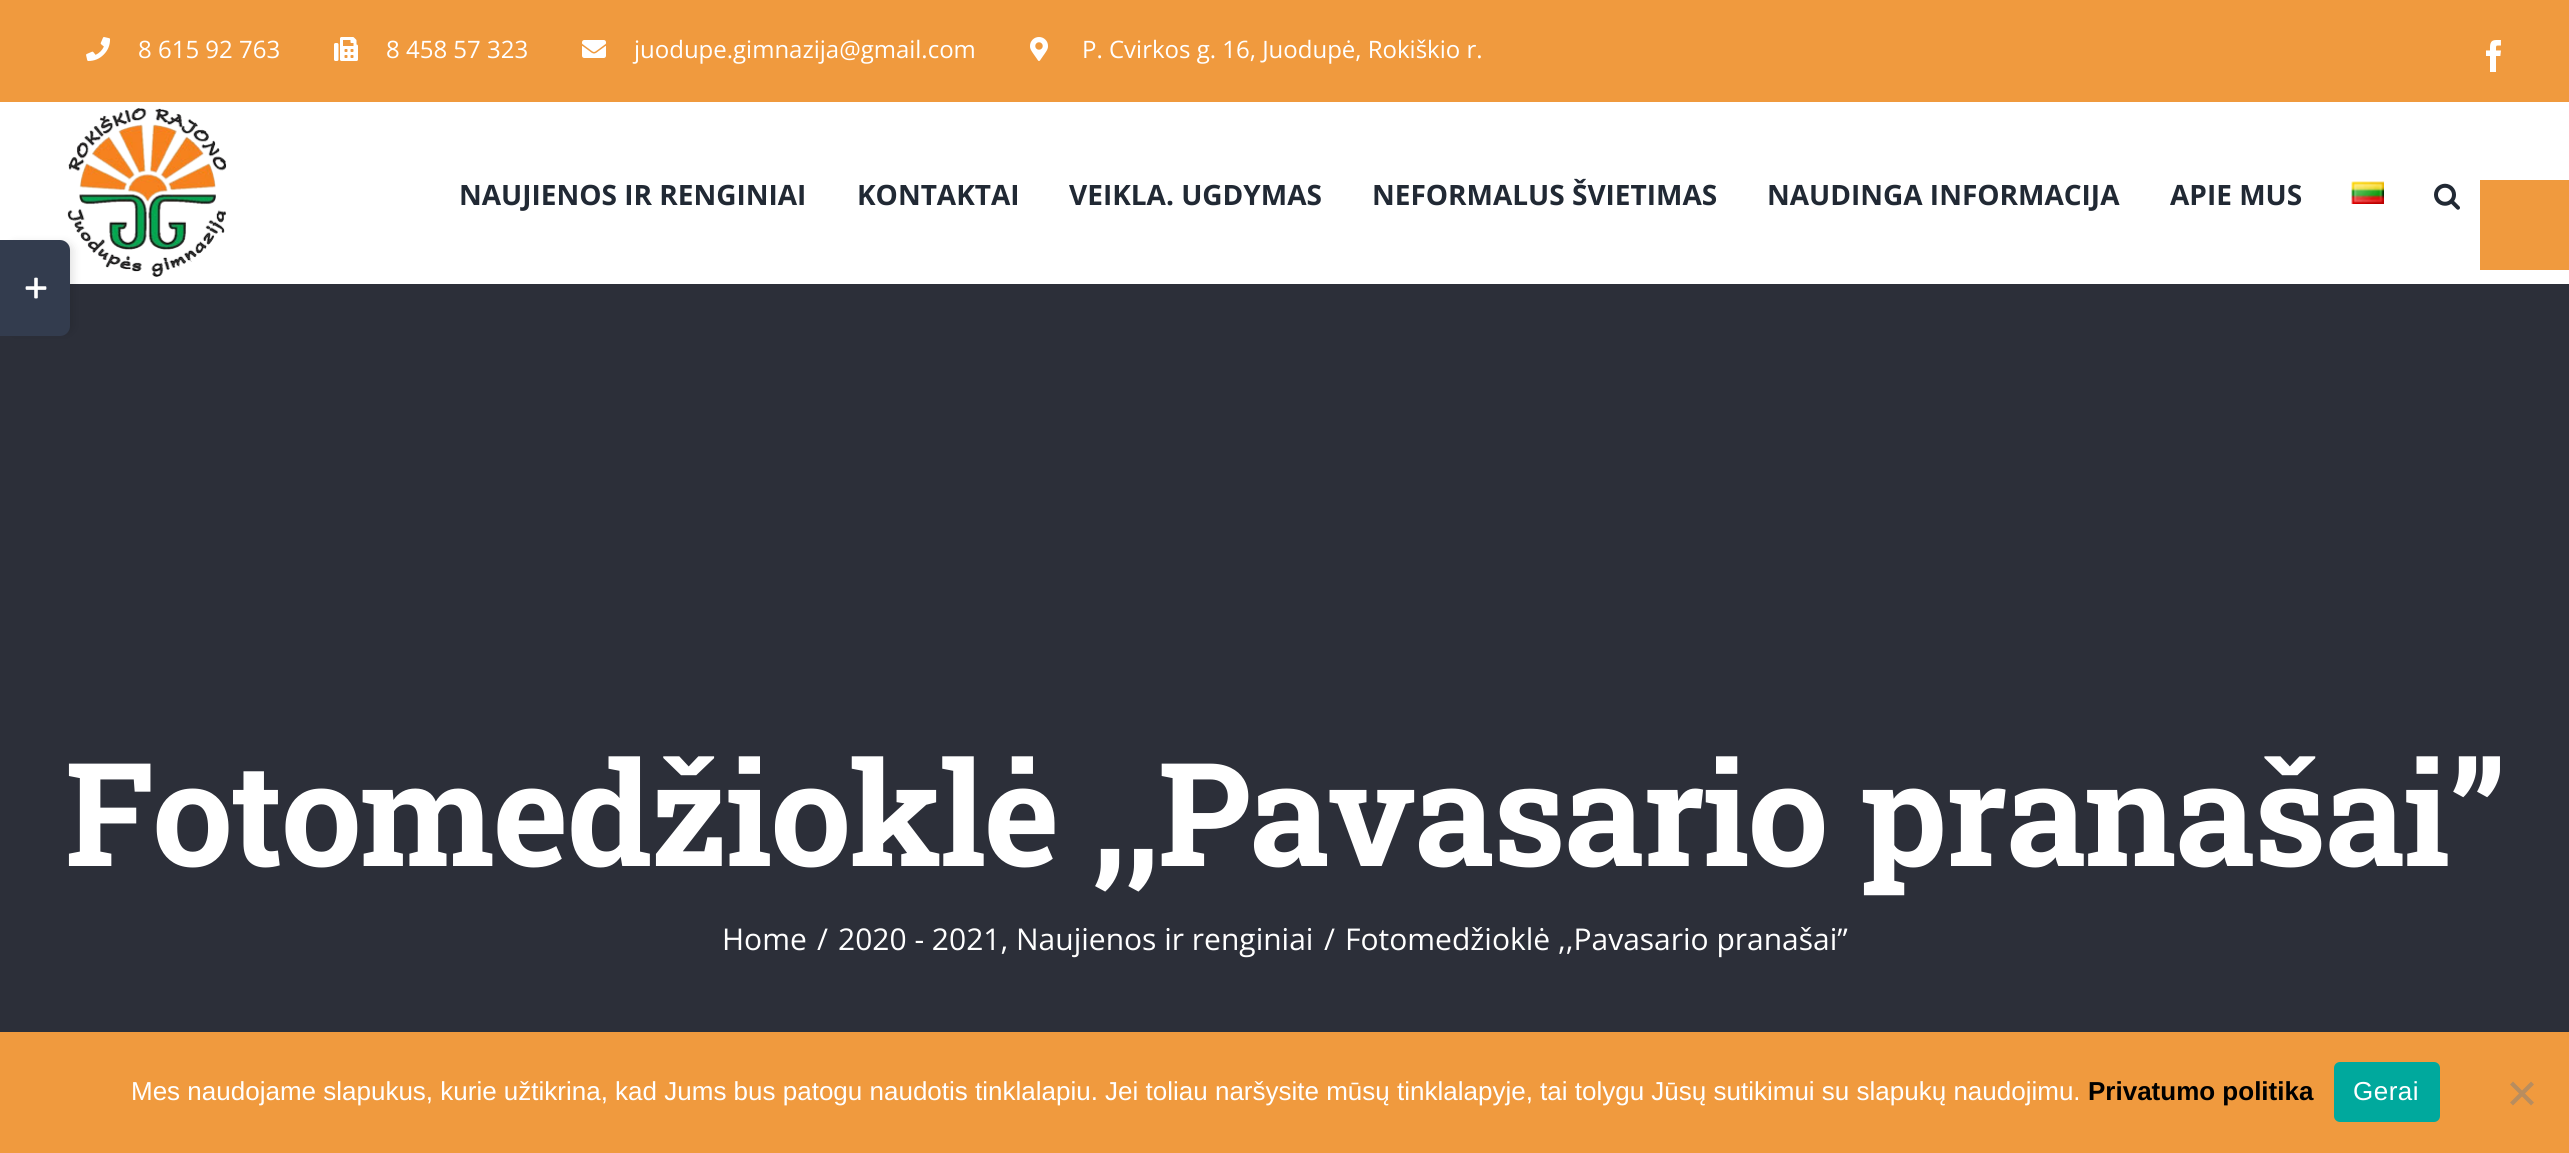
#include <cairo/cairo.h>
#include <math.h>
#include <stddef.h>

typedef struct { double x, y; const char *s; } line_t;
static cairo_t *cr;

static void rgb(unsigned color)
{
	cairo_set_source_rgb(cr, (color >> 16) / 255.0, (color >> 8 & 255) / 255.0, (color & 255) / 255.0);
}

static void tracked(double x, double y, const char *s, double letter, double word)
{
	cairo_move_to(cr, x, y);
	while (*s) {
		char ch[5] = {0};
		int n = 0;
		do ch[n++] = *s++; while ((*s & 0xC0) == 0x80);
		cairo_show_text(cr, ch);
		cairo_rel_move_to(cr, letter + word * (*ch == ' '), 0);
	}
}

static void rrect(double x, double y, double w, double h, double r)
{
	cairo_new_sub_path(cr);
	cairo_arc(cr, x + w - r, y + h - r, r, 0, M_PI / 2);
	cairo_arc(cr, x + r, y + h - r, r, M_PI / 2, M_PI);
	cairo_arc(cr, x + r, y + r, r, M_PI, 1.5 * M_PI);
	cairo_arc(cr, x + w - r, y + r, r, 1.5 * M_PI, 2 * M_PI);
	cairo_close_path(cr);
}

static void soft_shadow(double x, double y, double w, double h, double r, double blur, double alpha)
{
	cairo_push_group_with_content(cr, CAIRO_CONTENT_ALPHA);
	cairo_set_operator(cr, CAIRO_OPERATOR_SOURCE);
	for (int i = 15; i >= -15 && fmin(w, h) + blur * i / 3 > 0; i -= 2) {
		double e = blur * i / 6;
		cairo_set_source_rgba(cr, 0, 0, 0, alpha * erfc((i - 1) / 8.5) / 2);
		rrect(x - e, y - e, w + 2 * e, h + 2 * e, fmax(0, fmin(r + e + blur * .6, fmin(w, h) / 2 + e)));
		cairo_fill(cr);
	}
	cairo_pattern_t *soft = cairo_pop_group(cr);
	cairo_mask(cr, soft);
	cairo_pattern_destroy(soft);
}

static void image(const char *path, double x, double y, double w, double h)
{
	cairo_surface_t *image = cairo_image_surface_create_from_png(path);
	cairo_save(cr);
	cairo_set_source_surface(cr, image, x, y);
	cairo_rectangle(cr, x, y, w, h);
	cairo_fill(cr);
	cairo_restore(cr);
	cairo_surface_destroy(image);
}

int main(void) {
	cairo_surface_t *surface = cairo_image_surface_create(CAIRO_FORMAT_RGB24, 2569, 1153);
	cr = cairo_create(surface);
	cairo_font_options_t *options = cairo_font_options_create();
	cairo_font_options_set_hint_metrics(options, CAIRO_HINT_METRICS_OFF);
	cairo_font_options_set_hint_style(options, CAIRO_HINT_STYLE_NONE);
	cairo_set_font_options(cr, options);
	cairo_set_miter_limit(cr, 4);
	rgb(0xffffff);
	cairo_paint(cr);
	rgb(0xf09a3e);
	cairo_rectangle(cr, 0, 0, 2569, 102);
	cairo_fill(cr);
	image("img/1.png", 86, 37, 25, 24);
	image("img/2.png", 334, 37, 24, 24);
	image("img/3.png", 582, 40, 24, 18);
	image("img/4.png", 1030, 37, 18, 24);
	image("img/5.png", 2486, 40, 15, 32);
	image("img/6.png", 67, 108, 160, 169);
	image("img/7.png", 2351, 181, 33, 23);
	image("img/8.png", 2434, 183, 26, 27);
	rgb(0x2c2f39);
	cairo_rectangle(cr, 0, 284, 2569, 748);
	cairo_fill(cr);
	rgb(0x000000);
	soft_shadow(10, 244, 62, 88, 6, 5, 0.14);
	rgb(0x333c4e);
	cairo_new_path(cr);
	cairo_move_to(cr, 0, 240);
	cairo_line_to(cr, 60, 240);
	cairo_curve_to(cr, 65.5, 240, 70, 244.5, 70, 250);
	cairo_line_to(cr, 70, 326);
	cairo_curve_to(cr, 70, 331.5, 65.5, 336, 60, 336);
	cairo_line_to(cr, 0, 336);
	cairo_close_path(cr);
	cairo_fill(cr);
	image("img/9.png", 25, 277, 22, 22);
	rgb(0xf09a3e);
	cairo_rectangle(cr, 2480, 180, 89, 90);
	cairo_fill(cr);
	cairo_rectangle(cr, 0, 1032, 2569, 121);
	cairo_fill(cr);
	rgb(0x00a99d);
	rrect(2334, 1062, 106, 60, 6);
	cairo_fill(cr);
	rgb(0xb88d5f);
	cairo_new_path(cr);
	cairo_move_to(cr, 2531, 1081.5);
	cairo_line_to(cr, 2534, 1084.5);
	cairo_line_to(cr, 2513, 1105.5);
	cairo_line_to(cr, 2510, 1102.5);
	cairo_close_path(cr);
	cairo_fill(cr);
	cairo_new_path(cr);
	cairo_move_to(cr, 2510, 1084.5);
	cairo_line_to(cr, 2513, 1081.5);
	cairo_line_to(cr, 2534, 1102.5);
	cairo_line_to(cr, 2531, 1105.5);
	cairo_close_path(cr);
	cairo_fill(cr);
	cairo_select_font_face(cr, "Open Sans", CAIRO_FONT_SLANT_NORMAL, CAIRO_FONT_WEIGHT_NORMAL);
	cairo_set_font_size(cr, 24);
	rgb(0xffffff);
	{
		static const line_t items[] = {
			{138, 58, "8 615 92 763"},
			{386, 58, "8 458 57 323"},
			{634, 58, "juodupe.gimnazija@gmail.com"},
			{1082, 58, "P. Cvirkos g. 16, Juodupė, Rokiškio r."},
		};
		for (size_t i = 0; i < sizeof items / sizeof *items; i++) {
			cairo_move_to(cr, items[i].x, items[i].y);
			cairo_show_text(cr, items[i].s);
		}
	}
	cairo_select_font_face(cr, "Open Sans", CAIRO_FONT_SLANT_NORMAL, CAIRO_FONT_WEIGHT_BOLD);
	cairo_set_font_size(cr, 28);
	rgb(0x212934);
	{
		static const line_t items[] = {
			{459, 205, "NAUJIENOS IR RENGINIAI"},
			{857, 205, "KONTAKTAI"},
			{1069, 205, "VEIKLA. UGDYMAS"},
			{1372, 205, "NEFORMALUS ŠVIETIMAS"},
			{1767, 205, "NAUDINGA INFORMACIJA"},
			{2170, 205, "APIE MUS"},
		};
		for (size_t i = 0; i < sizeof items / sizeof *items; i++) {
			cairo_move_to(cr, items[i].x, items[i].y);
			cairo_show_text(cr, items[i].s);
		}
	}
	cairo_select_font_face(cr, "Roboto Slab", CAIRO_FONT_SLANT_NORMAL, CAIRO_FONT_WEIGHT_BOLD);
	cairo_set_font_size(cr, 144);
	rgb(0xffffff);
	tracked(65, 866, "Fotomedžioklė ,,Pavasario pranašai”", -2, 0);
	cairo_select_font_face(cr, "Open Sans", CAIRO_FONT_SLANT_NORMAL, CAIRO_FONT_WEIGHT_NORMAL);
	cairo_set_font_size(cr, 30);
	{
		static const line_t items[] = {
			{722, 950, "Home"},
			{817, 950, "/"},
			{838, 950, "2020 - 2021, Naujienos ir renginiai"},
			{1324, 950, "/"},
			{1345, 950, "Fotomedžioklė ,,Pavasario pranašai”"},
		};
		for (size_t i = 0; i < sizeof items / sizeof *items; i++) {
			cairo_move_to(cr, items[i].x, items[i].y);
			cairo_show_text(cr, items[i].s);
		}
	}
	cairo_select_font_face(cr, "Liberation Sans", CAIRO_FONT_SLANT_NORMAL, CAIRO_FONT_WEIGHT_NORMAL);
	cairo_set_font_size(cr, 26);
	cairo_move_to(cr, 131, 1100);
	cairo_show_text(cr, "Mes naudojame slapukus, kurie užtikrina, kad Jums bus patogu naudotis tinklalapiu. Jei toliau naršysite mūsų tinklalapyje, tai tolygu Jūsų sutikimui su slapukų naudojimu.");
	cairo_select_font_face(cr, "Liberation Sans", CAIRO_FONT_SLANT_NORMAL, CAIRO_FONT_WEIGHT_BOLD);
	rgb(0x000000);
	cairo_move_to(cr, 2088, 1100);
	cairo_show_text(cr, "Privatumo politika");
	cairo_select_font_face(cr, "Liberation Sans", CAIRO_FONT_SLANT_NORMAL, CAIRO_FONT_WEIGHT_NORMAL);
	rgb(0xffffff);
	tracked(2353, 1100, "Gerai", 0.5, 0);
	cairo_surface_write_to_png(surface, "page.png");
	cairo_font_options_destroy(options);
	cairo_destroy(cr);
	cairo_surface_destroy(surface);
	return 0;
}
